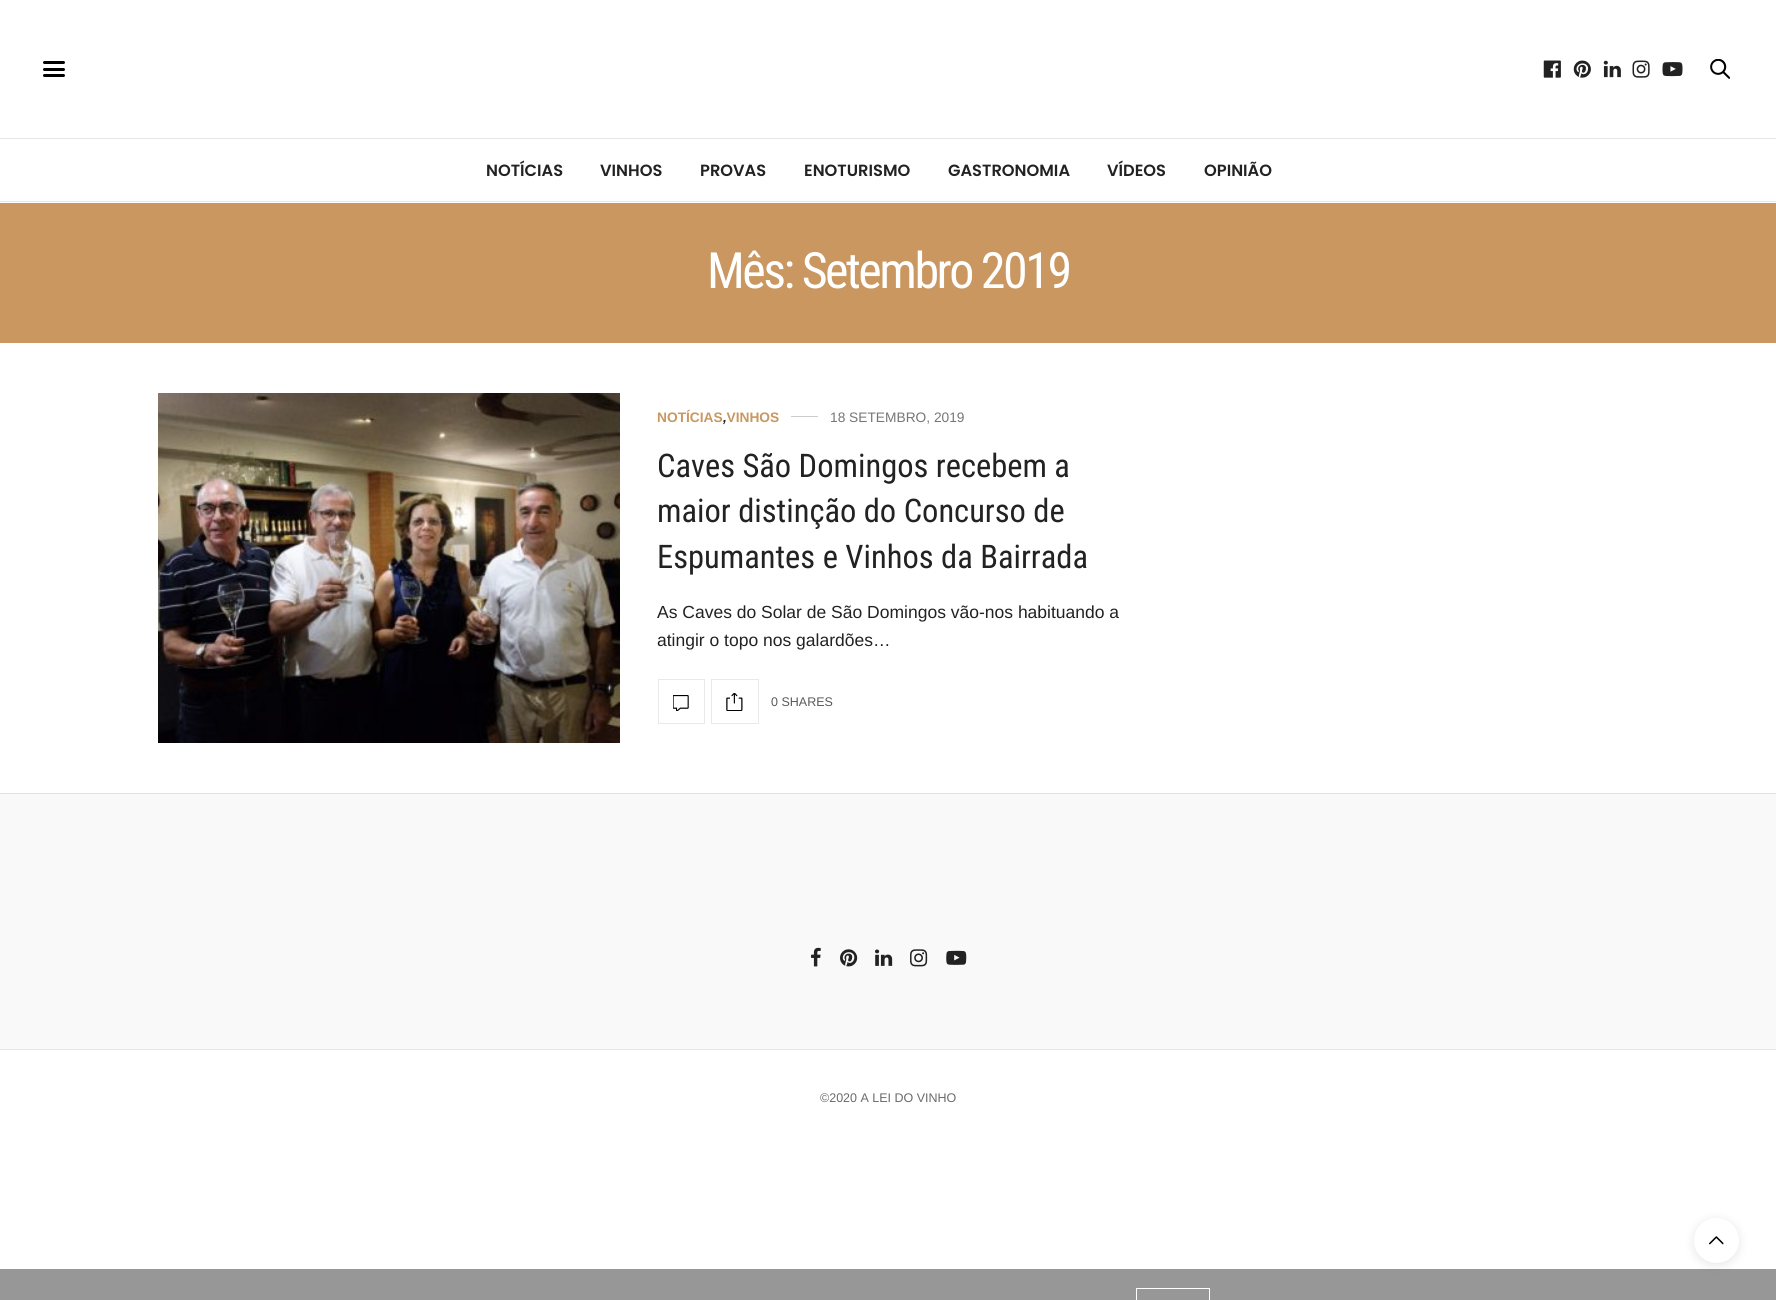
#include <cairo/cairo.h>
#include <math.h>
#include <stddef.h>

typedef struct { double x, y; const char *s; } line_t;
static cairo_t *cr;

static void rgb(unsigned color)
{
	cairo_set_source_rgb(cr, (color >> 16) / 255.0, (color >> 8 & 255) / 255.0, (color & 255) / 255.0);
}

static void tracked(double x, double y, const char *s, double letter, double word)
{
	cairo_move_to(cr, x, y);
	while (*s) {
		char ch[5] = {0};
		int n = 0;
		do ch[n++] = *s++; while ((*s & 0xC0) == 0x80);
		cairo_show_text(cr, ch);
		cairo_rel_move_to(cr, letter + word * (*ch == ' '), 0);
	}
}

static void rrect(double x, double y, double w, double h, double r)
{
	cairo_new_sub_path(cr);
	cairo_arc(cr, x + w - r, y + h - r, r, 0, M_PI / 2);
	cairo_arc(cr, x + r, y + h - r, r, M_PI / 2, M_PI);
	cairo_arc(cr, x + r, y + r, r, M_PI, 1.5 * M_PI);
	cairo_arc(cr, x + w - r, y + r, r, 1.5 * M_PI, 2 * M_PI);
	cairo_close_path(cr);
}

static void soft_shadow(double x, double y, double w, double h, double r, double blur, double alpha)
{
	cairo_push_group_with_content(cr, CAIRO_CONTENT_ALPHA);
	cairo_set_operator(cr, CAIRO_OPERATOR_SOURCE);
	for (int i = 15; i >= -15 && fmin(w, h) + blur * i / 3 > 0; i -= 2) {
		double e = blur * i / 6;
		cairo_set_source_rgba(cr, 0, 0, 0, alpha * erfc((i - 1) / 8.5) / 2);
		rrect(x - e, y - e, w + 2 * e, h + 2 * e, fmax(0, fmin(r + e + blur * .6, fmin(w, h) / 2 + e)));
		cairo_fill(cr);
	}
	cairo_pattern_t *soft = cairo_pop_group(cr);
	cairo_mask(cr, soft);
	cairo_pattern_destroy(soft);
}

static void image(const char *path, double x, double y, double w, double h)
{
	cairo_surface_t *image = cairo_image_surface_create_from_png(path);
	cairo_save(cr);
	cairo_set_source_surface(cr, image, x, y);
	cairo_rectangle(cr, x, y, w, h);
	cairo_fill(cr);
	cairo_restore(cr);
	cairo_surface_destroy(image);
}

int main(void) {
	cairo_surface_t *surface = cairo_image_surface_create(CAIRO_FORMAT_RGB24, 1776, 1300);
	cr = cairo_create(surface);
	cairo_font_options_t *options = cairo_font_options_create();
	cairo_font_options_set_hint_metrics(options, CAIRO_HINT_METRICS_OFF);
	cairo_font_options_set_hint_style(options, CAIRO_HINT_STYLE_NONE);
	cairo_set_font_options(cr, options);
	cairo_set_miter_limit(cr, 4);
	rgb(0xffffff);
	cairo_paint(cr);
	rgb(0xe6e6e6);
	cairo_rectangle(cr, 0, 138, 1776, 1);
	cairo_fill(cr);
	rgb(0x000000);
	rrect(43, 61, 22, 3, 1.5);
	cairo_fill(cr);
	rrect(43, 68, 22, 3, 1.5);
	cairo_fill(cr);
	rrect(43, 74, 22, 3, 1.5);
	cairo_fill(cr);
	image("img/1.png", 1543, 60, 18, 18);
	image("img/2.png", 1573, 60, 18, 18);
	image("img/3.png", 1603, 60, 18, 18);
	image("img/4.png", 1632, 60, 18, 18);
	image("img/5.png", 1662, 62, 21, 15);
	image("img/6.png", 1710, 59, 20, 20);
	rgb(0xe6e6e6);
	cairo_rectangle(cr, 0, 201, 1776, 1);
	cairo_fill(cr);
	rgb(0xc9975f);
	cairo_rectangle(cr, 0, 203, 1776, 140);
	cairo_fill(cr);
	image("img/7.png", 158, 393, 462, 350);
	rgb(0xcccccc);
	cairo_rectangle(cr, 791, 416, 27, 1);
	cairo_fill(cr);
	cairo_rectangle(cr, 658.5, 679.5, 46, 44);
	rgb(0xe9e9e9);
	cairo_set_line_width(cr, 1);
	cairo_stroke(cr);
	image("img/8.png", 673, 695, 16, 16);
	cairo_rectangle(cr, 711.5, 679.5, 47, 44);
	cairo_stroke(cr);
	image("img/9.png", 726, 693, 17, 18);
	rgb(0xf9f9f9);
	cairo_rectangle(cr, 0, 794, 1776, 255);
	cairo_fill(cr);
	rgb(0xe0e0e0);
	cairo_rectangle(cr, 0, 793, 1776, 1);
	cairo_fill(cr);
	image("img/10.png", 811, 947, 10, 20);
	image("img/11.png", 840, 949, 18, 18);
	image("img/12.png", 875, 949, 18, 17);
	image("img/13.png", 910, 949, 18, 18);
	image("img/14.png", 946, 950, 21, 15);
	rgb(0xe6e6e6);
	cairo_rectangle(cr, 0, 1049, 1776, 1);
	cairo_fill(cr);
	rgb(0x979797);
	cairo_rectangle(cr, 0, 1269, 1776, 31);
	cairo_fill(cr);
	rgb(0x000000);
	soft_shadow(1694, 1220, 45, 45, 22.5, 5, 0.1);
	rgb(0xffffff);
	cairo_arc(cr, 1716.5, 1240.5, 22.5, 0, 2 * M_PI);
	cairo_fill(cr);
	image("img/15.png", 1709, 1236, 15, 9);
	cairo_rectangle(cr, 1136.5, 1288.5, 73, 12);
	cairo_stroke(cr);
	cairo_select_font_face(cr, "Poppins SemiBold", CAIRO_FONT_SLANT_NORMAL, CAIRO_FONT_WEIGHT_NORMAL);
	cairo_set_font_size(cr, 16.25);
	rgb(0x222222);
	{
		static const line_t items[] = {
			{486, 176, "NOTÍCIAS"},
			{600, 176, "VINHOS"},
			{700, 176, "PROVAS"},
			{804, 176, "ENOTURISMO"},
			{948, 176, "GASTRONOMIA"},
			{1107, 176, "VÍDEOS"},
			{1204, 176, "OPINIÃO"},
		};
		for (size_t i = 0; i < sizeof items / sizeof *items; i++) {
			cairo_move_to(cr, items[i].x, items[i].y);
			cairo_show_text(cr, items[i].s);
		}
	}
	cairo_select_font_face(cr, "Roboto Condensed", CAIRO_FONT_SLANT_NORMAL, CAIRO_FONT_WEIGHT_NORMAL);
	cairo_set_font_size(cr, 50);
	rgb(0xffffff);
	tracked(707, 288, "Mês: Setembro 2019", -2.5, 0);
	cairo_select_font_face(cr, "Liberation Sans", CAIRO_FONT_SLANT_NORMAL, CAIRO_FONT_WEIGHT_BOLD);
	cairo_set_font_size(cr, 13.75);
	rgb(0xc9975f);
	cairo_move_to(cr, 657, 422);
	cairo_show_text(cr, "NOTÍCIAS VINHOS");
	cairo_select_font_face(cr, "Liberation Sans", CAIRO_FONT_SLANT_ITALIC, CAIRO_FONT_WEIGHT_BOLD);
	rgb(0x222222);
	cairo_move_to(cr, 723, 422);
	cairo_show_text(cr, ",");
	cairo_select_font_face(cr, "Liberation Sans", CAIRO_FONT_SLANT_NORMAL, CAIRO_FONT_WEIGHT_NORMAL);
	rgb(0x767676);
	cairo_move_to(cr, 830, 422);
	cairo_show_text(cr, "18 SETEMBRO, 2019");
	cairo_select_font_face(cr, "Roboto Condensed", CAIRO_FONT_SLANT_NORMAL, CAIRO_FONT_WEIGHT_NORMAL);
	cairo_set_font_size(cr, 32.5);
	rgb(0x222222);
	{
		static const line_t items[] = {
			{657, 477, "Caves São Domingos recebem a"},
			{657, 522, "maior distinção do Concurso de"},
			{657, 568, "Espumantes e Vinhos da Bairrada"},
		};
		for (size_t i = 0; i < sizeof items / sizeof *items; i++) {
			cairo_move_to(cr, items[i].x, items[i].y);
			cairo_show_text(cr, items[i].s);
		}
	}
	cairo_select_font_face(cr, "Liberation Sans", CAIRO_FONT_SLANT_NORMAL, CAIRO_FONT_WEIGHT_NORMAL);
	cairo_set_font_size(cr, 17.5);
	cairo_move_to(cr, 657, 618);
	cairo_show_text(cr, "As Caves do Solar de São Domingos vão-nos habituando a");
	cairo_move_to(cr, 657, 646);
	cairo_show_text(cr, "atingir o topo nos galardões…");
	cairo_set_font_size(cr, 12.5);
	rgb(0x595959);
	cairo_move_to(cr, 771, 706);
	cairo_show_text(cr, "0 SHARES");
	rgb(0x6a6a6a);
	cairo_move_to(cr, 820, 1102);
	cairo_show_text(cr, "©2020 A LEI DO VINHO");
	cairo_surface_write_to_png(surface, "page.png");
	cairo_font_options_destroy(options);
	cairo_destroy(cr);
	cairo_surface_destroy(surface);
	return 0;
}
